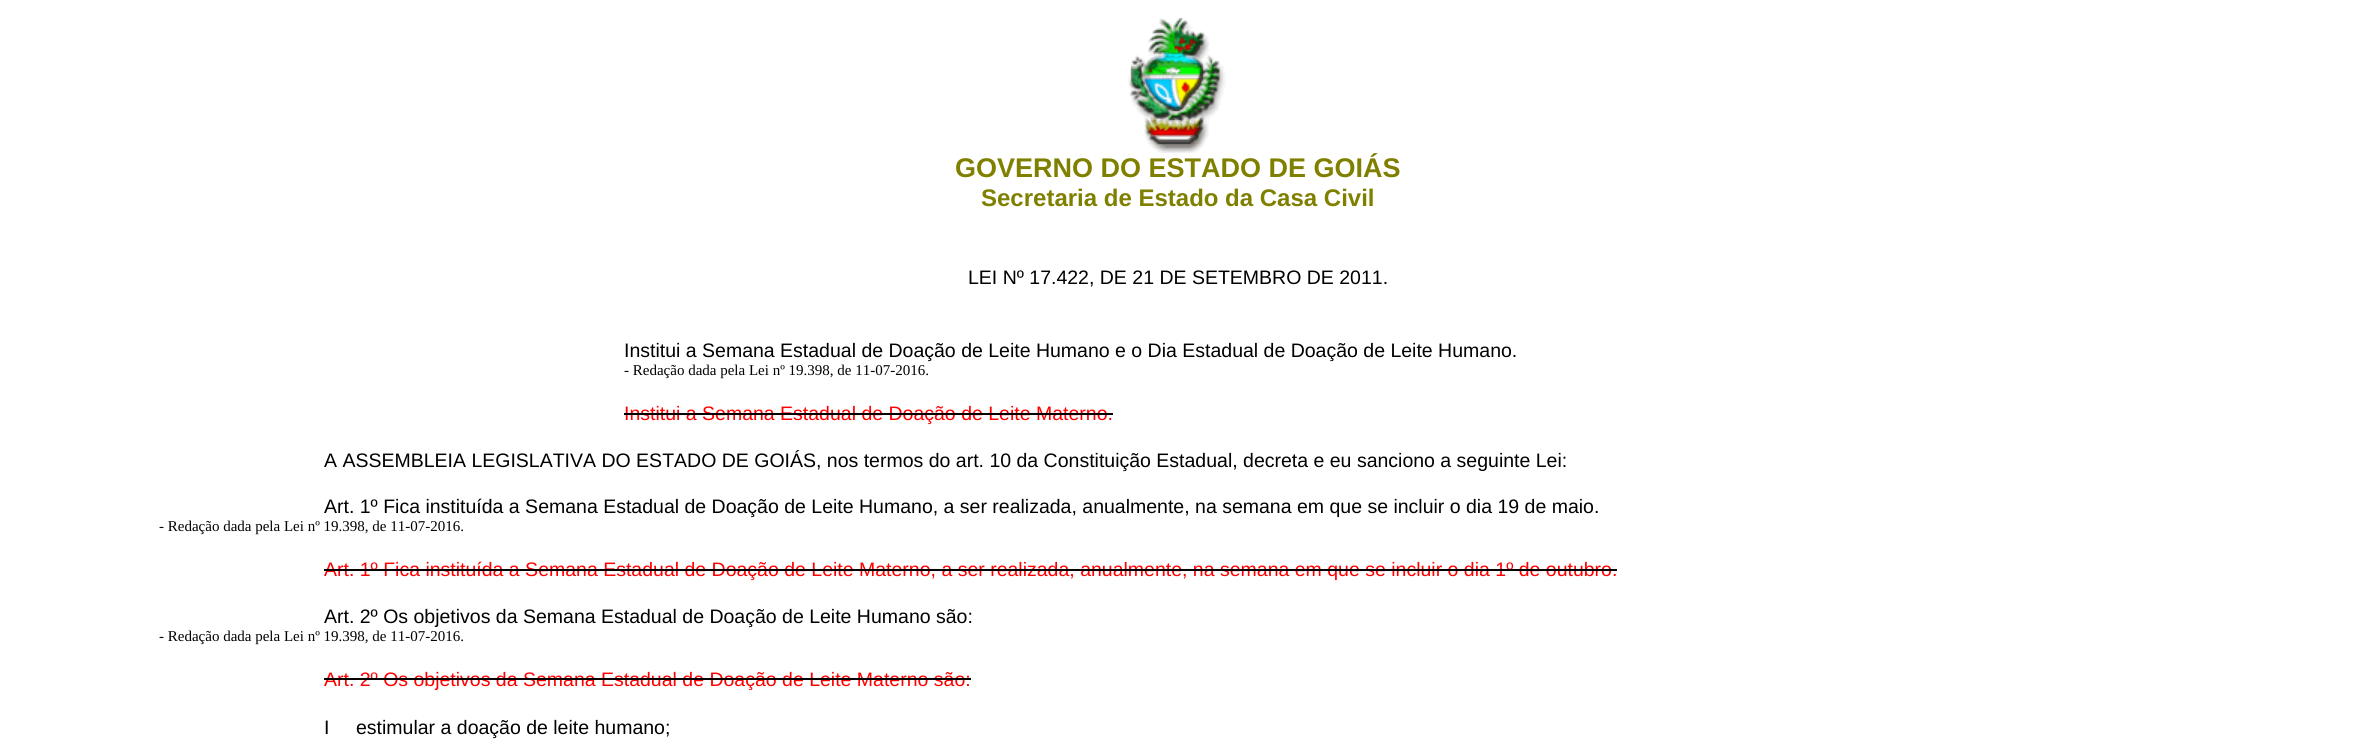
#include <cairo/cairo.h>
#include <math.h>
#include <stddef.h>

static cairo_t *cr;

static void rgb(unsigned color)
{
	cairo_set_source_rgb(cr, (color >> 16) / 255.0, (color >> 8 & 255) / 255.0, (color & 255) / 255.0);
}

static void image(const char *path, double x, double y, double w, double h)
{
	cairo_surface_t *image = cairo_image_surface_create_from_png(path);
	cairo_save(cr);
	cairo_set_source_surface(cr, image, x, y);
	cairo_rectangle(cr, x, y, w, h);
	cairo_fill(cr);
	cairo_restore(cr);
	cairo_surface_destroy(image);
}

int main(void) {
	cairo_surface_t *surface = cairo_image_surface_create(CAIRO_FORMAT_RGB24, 2356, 746);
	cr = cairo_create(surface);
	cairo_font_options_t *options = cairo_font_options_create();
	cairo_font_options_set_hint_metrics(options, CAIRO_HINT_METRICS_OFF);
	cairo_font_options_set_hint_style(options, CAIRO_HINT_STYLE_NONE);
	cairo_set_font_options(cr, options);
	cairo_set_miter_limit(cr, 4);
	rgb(0xffffff);
	cairo_paint(cr);
	image("img/1.png", 1128, 18, 98, 135);
	cairo_select_font_face(cr, "Liberation Sans", CAIRO_FONT_SLANT_NORMAL, CAIRO_FONT_WEIGHT_BOLD);
	cairo_set_font_size(cr, 27);
	rgb(0x808000);
	cairo_move_to(cr, 955, 177);
	cairo_show_text(cr, "GOVERNO DO ESTADO DE GOIÁS");
	cairo_set_font_size(cr, 24);
	cairo_move_to(cr, 981, 206);
	cairo_show_text(cr, "Secretaria de Estado da Casa Civil");
	cairo_select_font_face(cr, "Liberation Sans", CAIRO_FONT_SLANT_NORMAL, CAIRO_FONT_WEIGHT_NORMAL);
	cairo_set_font_size(cr, 19.5);
	rgb(0x000000);
	cairo_move_to(cr, 968, 284);
	cairo_show_text(cr, "LEI Nº 17.422, DE 21 DE SETEMBRO DE 2011.");
	cairo_move_to(cr, 624, 357);
	cairo_show_text(cr, "Institui a Semana Estadual de Doação de Leite Humano e o Dia Estadual de Doação de Leite Humano.");
	cairo_select_font_face(cr, "Liberation Serif", CAIRO_FONT_SLANT_NORMAL, CAIRO_FONT_WEIGHT_NORMAL);
	cairo_set_font_size(cr, 15);
	cairo_move_to(cr, 624, 375);
	cairo_show_text(cr, "- Redação dada pela Lei nº 19.398, de 11-07-2016.");
	cairo_select_font_face(cr, "Liberation Sans", CAIRO_FONT_SLANT_NORMAL, CAIRO_FONT_WEIGHT_NORMAL);
	cairo_set_font_size(cr, 19.5);
	rgb(0xff0000);
	cairo_move_to(cr, 624, 420);
	cairo_show_text(cr, "Institui a Semana Estadual de Doação de Leite Materno.");
	rgb(0x000000);
	cairo_rectangle(cr, 624, 413, 489, 2);
	cairo_fill(cr);
	cairo_move_to(cr, 324, 467);
	cairo_show_text(cr, "A ASSEMBLEIA LEGISLATIVA DO ESTADO DE GOIÁS, nos termos do art. 10 da Constituição Estadual, decreta e eu sanciono a seguinte Lei:");
	cairo_move_to(cr, 324, 513);
	cairo_show_text(cr, "Art. 1º Fica instituída a Semana Estadual de Doação de Leite Humano, a ser realizada, anualmente, na semana em que se incluir o dia 19 de maio.");
	cairo_select_font_face(cr, "Liberation Serif", CAIRO_FONT_SLANT_NORMAL, CAIRO_FONT_WEIGHT_NORMAL);
	cairo_set_font_size(cr, 15);
	cairo_move_to(cr, 159, 531);
	cairo_show_text(cr, "- Redação dada pela Lei nº 19.398, de 11-07-2016.");
	cairo_select_font_face(cr, "Liberation Sans", CAIRO_FONT_SLANT_NORMAL, CAIRO_FONT_WEIGHT_NORMAL);
	cairo_set_font_size(cr, 19.5);
	rgb(0xff0000);
	cairo_move_to(cr, 324, 576);
	cairo_show_text(cr, "Art. 1º Fica instituída a Semana Estadual de Doação de Leite Materno, a ser realizada, anualmente, na semana em que se incluir o dia 1º de outubro.");
	rgb(0x000000);
	cairo_rectangle(cr, 324, 569, 1293, 2);
	cairo_fill(cr);
	cairo_move_to(cr, 324, 623);
	cairo_show_text(cr, "Art. 2º Os objetivos da Semana Estadual de Doação de Leite Humano são:");
	cairo_select_font_face(cr, "Liberation Serif", CAIRO_FONT_SLANT_NORMAL, CAIRO_FONT_WEIGHT_NORMAL);
	cairo_set_font_size(cr, 15);
	cairo_move_to(cr, 159, 641);
	cairo_show_text(cr, "- Redação dada pela Lei nº 19.398, de 11-07-2016.");
	cairo_select_font_face(cr, "Liberation Sans", CAIRO_FONT_SLANT_NORMAL, CAIRO_FONT_WEIGHT_NORMAL);
	cairo_set_font_size(cr, 19.5);
	rgb(0xff0000);
	cairo_move_to(cr, 324, 686);
	cairo_show_text(cr, "Art. 2º Os objetivos da Semana Estadual de Doação de Leite Materno são:");
	rgb(0x000000);
	cairo_rectangle(cr, 324, 678, 647, 2);
	cairo_fill(cr);
	cairo_move_to(cr, 324, 734);
	cairo_show_text(cr, "I");
	cairo_move_to(cr, 356, 734);
	cairo_show_text(cr, "estimular a doação de leite humano;");
	cairo_surface_write_to_png(surface, "page.png");
	cairo_font_options_destroy(options);
	cairo_destroy(cr);
	cairo_surface_destroy(surface);
	return 0;
}
